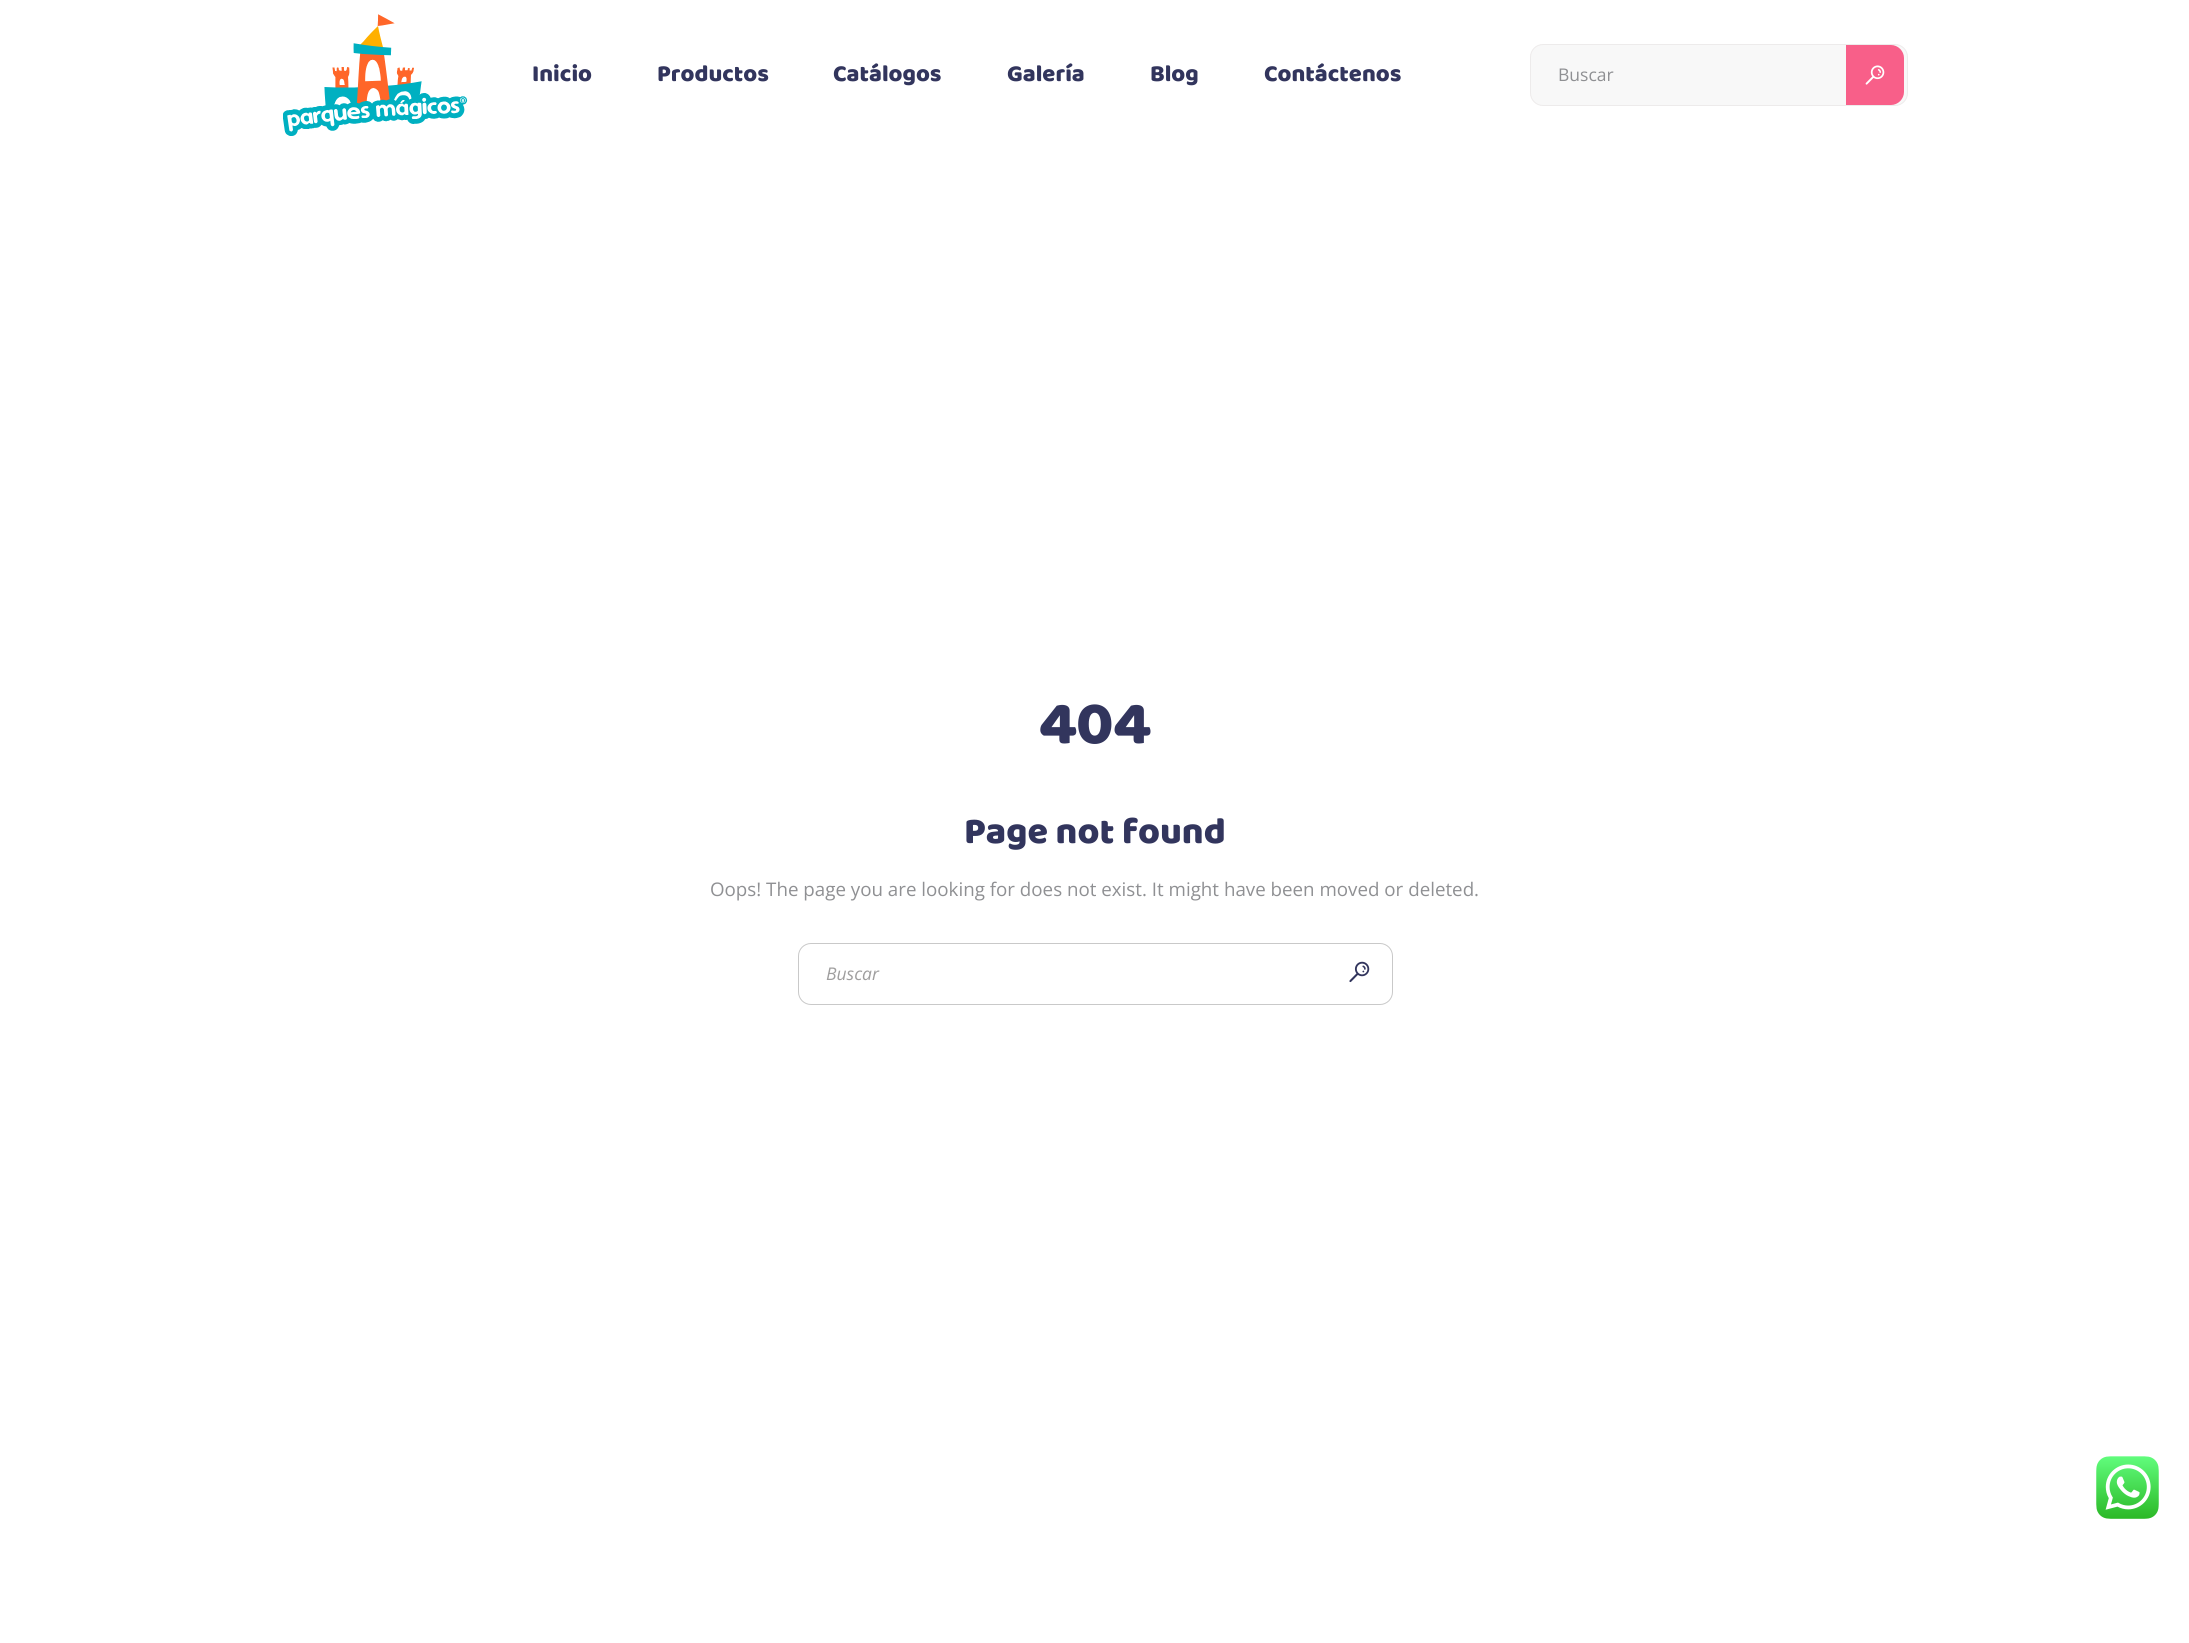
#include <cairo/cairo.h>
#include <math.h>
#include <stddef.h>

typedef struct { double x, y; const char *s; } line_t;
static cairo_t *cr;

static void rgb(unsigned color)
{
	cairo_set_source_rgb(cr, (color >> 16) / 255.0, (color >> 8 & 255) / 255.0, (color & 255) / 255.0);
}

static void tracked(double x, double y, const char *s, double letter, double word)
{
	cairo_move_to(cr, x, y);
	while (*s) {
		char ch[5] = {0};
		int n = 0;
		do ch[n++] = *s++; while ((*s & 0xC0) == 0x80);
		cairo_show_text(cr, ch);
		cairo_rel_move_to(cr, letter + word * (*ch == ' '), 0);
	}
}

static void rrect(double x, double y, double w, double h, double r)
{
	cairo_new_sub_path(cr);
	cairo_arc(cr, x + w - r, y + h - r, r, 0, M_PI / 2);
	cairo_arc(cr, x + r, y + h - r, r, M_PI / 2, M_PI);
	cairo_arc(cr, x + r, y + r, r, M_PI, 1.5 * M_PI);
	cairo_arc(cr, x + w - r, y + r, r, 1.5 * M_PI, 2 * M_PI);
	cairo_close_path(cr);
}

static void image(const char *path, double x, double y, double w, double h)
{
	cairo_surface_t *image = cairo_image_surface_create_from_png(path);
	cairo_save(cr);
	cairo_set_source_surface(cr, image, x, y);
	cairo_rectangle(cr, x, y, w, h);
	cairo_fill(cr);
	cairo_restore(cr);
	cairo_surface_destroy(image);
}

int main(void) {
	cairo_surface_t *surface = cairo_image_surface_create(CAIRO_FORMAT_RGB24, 2189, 1643);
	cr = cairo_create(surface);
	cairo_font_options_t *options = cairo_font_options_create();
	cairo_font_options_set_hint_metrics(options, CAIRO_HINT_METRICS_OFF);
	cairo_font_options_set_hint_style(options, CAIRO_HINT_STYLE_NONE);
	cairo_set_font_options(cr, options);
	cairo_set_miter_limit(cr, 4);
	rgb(0xffffff);
	cairo_paint(cr);
	image("img/1.png", 283, 14, 185, 122);
	rgb(0xf8f8f8);
	rrect(1530.5, 44.5, 377, 61, 12.5);
	cairo_fill_preserve(cr);
	rgb(0xedebeb);
	cairo_set_line_width(cr, 1);
	cairo_stroke(cr);
	rgb(0xf85f89);
	cairo_new_path(cr);
	cairo_move_to(cr, 1846, 45);
	cairo_line_to(cr, 1891, 45);
	cairo_curve_to(cr, 1898, 45, 1904, 51, 1904, 58);
	cairo_line_to(cr, 1904, 92);
	cairo_curve_to(cr, 1904, 99, 1898, 105, 1891, 105);
	cairo_line_to(cr, 1846, 105);
	cairo_close_path(cr);
	cairo_fill(cr);
	image("img/2.png", 1865, 65, 20, 20);
	rrect(798.5, 943.5, 594, 61, 12.5);
	rgb(0xc9c9c9);
	cairo_stroke(cr);
	image("img/3.png", 1349, 961, 21, 22);
	image("img/4.png", 2096, 1456, 63, 63);
	cairo_select_font_face(cr, "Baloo", CAIRO_FONT_SLANT_NORMAL, CAIRO_FONT_WEIGHT_NORMAL);
	cairo_set_font_size(cr, 23.75);
	rgb(0x32355d);
	{
		static const line_t items[] = {
			{532, 81, "Inicio"},
			{657, 81, "Productos"},
			{833, 81, "Catálogos"},
			{1007, 81, "Galería"},
			{1150, 81, "Blog"},
			{1264, 81, "Contáctenos"},
		};
		for (size_t i = 0; i < sizeof items / sizeof *items; i++) {
			cairo_move_to(cr, items[i].x, items[i].y);
			cairo_show_text(cr, items[i].s);
		}
	}
	cairo_select_font_face(cr, "Open Sans", CAIRO_FONT_SLANT_NORMAL, CAIRO_FONT_WEIGHT_NORMAL);
	cairo_set_font_size(cr, 17.5);
	rgb(0x8f9093);
	cairo_move_to(cr, 1558, 81);
	cairo_show_text(cr, "Buscar");
	cairo_select_font_face(cr, "Baloo", CAIRO_FONT_SLANT_NORMAL, CAIRO_FONT_WEIGHT_NORMAL);
	cairo_set_font_size(cr, 62);
	rgb(0x32355d);
	tracked(1039, 743, "404", -0.5, 0);
	cairo_set_font_size(cr, 37.5);
	cairo_move_to(cr, 964, 843);
	cairo_show_text(cr, "Page not found");
	cairo_select_font_face(cr, "Open Sans", CAIRO_FONT_SLANT_NORMAL, CAIRO_FONT_WEIGHT_NORMAL);
	cairo_set_font_size(cr, 18.75);
	rgb(0x8f9093);
	cairo_move_to(cr, 710, 896);
	cairo_show_text(cr, "Oops! The page you are looking for does not exist. It might have been moved or deleted.");
	cairo_select_font_face(cr, "Open Sans", CAIRO_FONT_SLANT_ITALIC, CAIRO_FONT_WEIGHT_NORMAL);
	cairo_set_font_size(cr, 17.5);
	rgb(0x9f9e9e);
	cairo_move_to(cr, 826, 980);
	cairo_show_text(cr, "Buscar");
	cairo_surface_write_to_png(surface, "page.png");
	cairo_font_options_destroy(options);
	cairo_destroy(cr);
	cairo_surface_destroy(surface);
	return 0;
}
